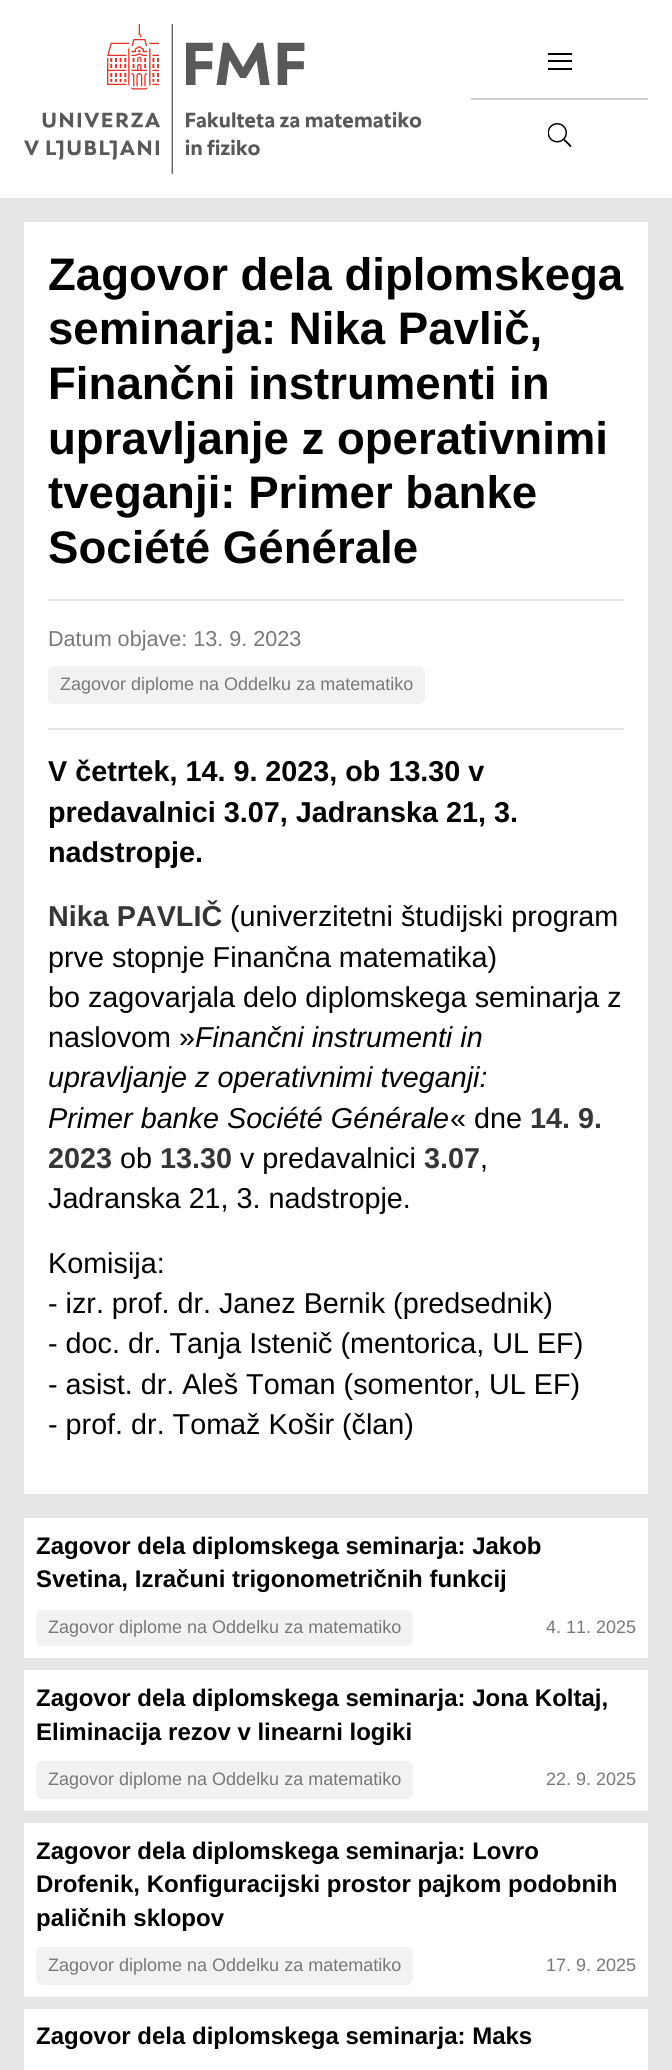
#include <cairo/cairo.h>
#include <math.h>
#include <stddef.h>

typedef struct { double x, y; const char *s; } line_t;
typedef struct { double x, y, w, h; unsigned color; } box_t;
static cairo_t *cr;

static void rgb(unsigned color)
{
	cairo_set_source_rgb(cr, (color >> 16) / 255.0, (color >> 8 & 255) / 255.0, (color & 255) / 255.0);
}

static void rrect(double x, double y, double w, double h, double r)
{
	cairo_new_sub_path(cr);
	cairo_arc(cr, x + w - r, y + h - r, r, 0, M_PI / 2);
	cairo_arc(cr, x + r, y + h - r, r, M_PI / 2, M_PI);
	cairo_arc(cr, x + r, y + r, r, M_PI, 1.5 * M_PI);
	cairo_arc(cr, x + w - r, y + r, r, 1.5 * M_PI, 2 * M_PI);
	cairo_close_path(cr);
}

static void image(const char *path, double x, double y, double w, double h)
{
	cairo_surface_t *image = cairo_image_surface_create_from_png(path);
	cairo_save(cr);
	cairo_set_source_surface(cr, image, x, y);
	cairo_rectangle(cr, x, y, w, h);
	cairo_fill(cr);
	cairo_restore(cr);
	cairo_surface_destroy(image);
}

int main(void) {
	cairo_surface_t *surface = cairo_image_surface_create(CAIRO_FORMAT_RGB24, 672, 2070);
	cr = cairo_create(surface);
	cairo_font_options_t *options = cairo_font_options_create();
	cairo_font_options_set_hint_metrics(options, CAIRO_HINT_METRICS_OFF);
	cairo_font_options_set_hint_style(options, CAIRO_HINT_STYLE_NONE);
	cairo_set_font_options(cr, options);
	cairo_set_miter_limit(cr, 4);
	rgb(0xe6e6e6);
	cairo_paint(cr);
	rgb(0xffffff);
	cairo_rectangle(cr, 0, 0, 672, 198);
	cairo_fill(cr);
	image("img/1.png", 24, 24, 398, 150);
	{
		static const box_t items[] = {
			{471, 98, 177, 2, 0xcccccc},
			{548, 53, 24, 2, 0x000000},
			{548, 60, 24, 2, 0x000000},
			{548, 68, 24, 2, 0x000000},
		};
		for (size_t i = 0; i < sizeof items / sizeof *items; i++) {
			rgb(items[i].color);
			cairo_rectangle(cr, items[i].x, items[i].y, items[i].w, items[i].h);
			cairo_fill(cr);
		}
	}
	image("img/2.png", 548, 123, 24, 24);
	{
		static const box_t items[] = {
			{24, 222, 624, 1272, 0xffffff},
			{48, 599, 576, 2, 0xe6e6e6},
			{48, 728, 576, 2, 0xe6e6e6},
		};
		for (size_t i = 0; i < sizeof items / sizeof *items; i++) {
			rgb(items[i].color);
			cairo_rectangle(cr, items[i].x, items[i].y, items[i].w, items[i].h);
			cairo_fill(cr);
		}
	}
	rgb(0xf2f2f2);
	rrect(48, 666, 377, 38, 6);
	cairo_fill(cr);
	rgb(0xffffff);
	cairo_rectangle(cr, 24, 1518, 624, 140);
	cairo_fill(cr);
	rgb(0xf2f2f2);
	rrect(36, 1610, 377, 36, 6);
	cairo_fill(cr);
	rgb(0xffffff);
	cairo_rectangle(cr, 24, 1670, 624, 141);
	cairo_fill(cr);
	rgb(0xf2f2f2);
	rrect(36, 1761, 377, 38, 6);
	cairo_fill(cr);
	rgb(0xffffff);
	cairo_rectangle(cr, 24, 1823, 624, 174);
	cairo_fill(cr);
	rgb(0xf2f2f2);
	rrect(36, 1947, 377, 38, 6);
	cairo_fill(cr);
	rgb(0xffffff);
	cairo_rectangle(cr, 24, 2009, 624, 61);
	cairo_fill(cr);
	cairo_select_font_face(cr, "Liberation Sans", CAIRO_FONT_SLANT_NORMAL, CAIRO_FONT_WEIGHT_BOLD);
	cairo_set_font_size(cr, 45.6);
	rgb(0x000000);
	{
		static const line_t items[] = {
			{48, 290, "Zagovor dela diplomskega"},
			{48, 344, "seminarja: Nika Pavlič,"},
			{48, 399, "Finančni instrumenti in"},
			{48, 454, "upravljanje z operativnimi"},
			{48, 508, "tveganji: Primer banke"},
			{48, 563, "Société Générale"},
		};
		for (size_t i = 0; i < sizeof items / sizeof *items; i++) {
			cairo_move_to(cr, items[i].x, items[i].y);
			cairo_show_text(cr, items[i].s);
		}
	}
	cairo_select_font_face(cr, "Liberation Sans", CAIRO_FONT_SLANT_NORMAL, CAIRO_FONT_WEIGHT_NORMAL);
	cairo_set_font_size(cr, 21.6);
	rgb(0x77787b);
	cairo_move_to(cr, 48, 646);
	cairo_show_text(cr, "Datum objave: 13. 9. 2023");
	cairo_set_font_size(cr, 18);
	cairo_move_to(cr, 60, 690);
	cairo_show_text(cr, "Zagovor diplome na Oddelku za matematiko");
	cairo_select_font_face(cr, "Liberation Sans", CAIRO_FONT_SLANT_NORMAL, CAIRO_FONT_WEIGHT_BOLD);
	cairo_set_font_size(cr, 28.75);
	rgb(0x000000);
	{
		static const line_t items[] = {
			{48, 781, "V četrtek, 14. 9. 2023, ob 13.30 v"},
			{48, 822, "predavalnici 3.07, Jadranska 21, 3."},
			{48, 862, "nadstropje."},
		};
		for (size_t i = 0; i < sizeof items / sizeof *items; i++) {
			cairo_move_to(cr, items[i].x, items[i].y);
			cairo_show_text(cr, items[i].s);
		}
	}
	rgb(0x363636);
	cairo_move_to(cr, 48, 926);
	cairo_show_text(cr, "Nika PAVLIČ");
	cairo_select_font_face(cr, "Liberation Sans", CAIRO_FONT_SLANT_NORMAL, CAIRO_FONT_WEIGHT_NORMAL);
	rgb(0x000000);
	{
		static const line_t items[] = {
			{230, 926, "(univerzitetni študijski program"},
			{48, 967, "prve stopnje Finančna matematika)"},
			{48, 1007, "bo zagovarjala delo diplomskega seminarja z"},
			{48, 1047, "naslovom »"},
		};
		for (size_t i = 0; i < sizeof items / sizeof *items; i++) {
			cairo_move_to(cr, items[i].x, items[i].y);
			cairo_show_text(cr, items[i].s);
		}
	}
	cairo_select_font_face(cr, "Liberation Sans", CAIRO_FONT_SLANT_ITALIC, CAIRO_FONT_WEIGHT_NORMAL);
	{
		static const line_t items[] = {
			{195, 1047, "Finančni instrumenti in"},
			{48, 1087, "upravljanje z operativnimi tveganji:"},
			{48, 1128, "Primer banke Société Générale"},
		};
		for (size_t i = 0; i < sizeof items / sizeof *items; i++) {
			cairo_move_to(cr, items[i].x, items[i].y);
			cairo_show_text(cr, items[i].s);
		}
	}
	cairo_select_font_face(cr, "Liberation Sans", CAIRO_FONT_SLANT_NORMAL, CAIRO_FONT_WEIGHT_NORMAL);
	cairo_move_to(cr, 450, 1128);
	cairo_show_text(cr, "« dne");
	cairo_select_font_face(cr, "Liberation Sans", CAIRO_FONT_SLANT_NORMAL, CAIRO_FONT_WEIGHT_BOLD);
	rgb(0x363636);
	cairo_move_to(cr, 530, 1128);
	cairo_show_text(cr, "14. 9.");
	cairo_move_to(cr, 48, 1168);
	cairo_show_text(cr, "2023");
	cairo_select_font_face(cr, "Liberation Sans", CAIRO_FONT_SLANT_NORMAL, CAIRO_FONT_WEIGHT_NORMAL);
	rgb(0x000000);
	cairo_move_to(cr, 120, 1168);
	cairo_show_text(cr, "ob");
	cairo_select_font_face(cr, "Liberation Sans", CAIRO_FONT_SLANT_NORMAL, CAIRO_FONT_WEIGHT_BOLD);
	rgb(0x363636);
	cairo_move_to(cr, 160, 1168);
	cairo_show_text(cr, "13.30");
	cairo_select_font_face(cr, "Liberation Sans", CAIRO_FONT_SLANT_NORMAL, CAIRO_FONT_WEIGHT_NORMAL);
	rgb(0x000000);
	cairo_move_to(cr, 240, 1168);
	cairo_show_text(cr, "v predavalnici");
	cairo_select_font_face(cr, "Liberation Sans", CAIRO_FONT_SLANT_NORMAL, CAIRO_FONT_WEIGHT_BOLD);
	rgb(0x363636);
	cairo_move_to(cr, 424, 1168);
	cairo_show_text(cr, "3.07");
	cairo_select_font_face(cr, "Liberation Sans", CAIRO_FONT_SLANT_NORMAL, CAIRO_FONT_WEIGHT_NORMAL);
	rgb(0x000000);
	{
		static const line_t items[] = {
			{480, 1168, ","},
			{48, 1208, "Jadranska 21, 3. nadstropje."},
			{48, 1273, "Komisija:"},
			{48, 1313, "- izr. prof. dr. Janez Bernik (predsednik)"},
			{48, 1353, "- doc. dr. Tanja Istenič (mentorica, UL EF)"},
			{48, 1394, "- asist. dr. Aleš Toman (somentor, UL EF)"},
			{48, 1434, "- prof. dr. Tomaž Košir (član)"},
		};
		for (size_t i = 0; i < sizeof items / sizeof *items; i++) {
			cairo_move_to(cr, items[i].x, items[i].y);
			cairo_show_text(cr, items[i].s);
		}
	}
	cairo_select_font_face(cr, "Liberation Sans", CAIRO_FONT_SLANT_NORMAL, CAIRO_FONT_WEIGHT_BOLD);
	cairo_set_font_size(cr, 24);
	cairo_move_to(cr, 36, 1554);
	cairo_show_text(cr, "Zagovor dela diplomskega seminarja: Jakob");
	cairo_move_to(cr, 36, 1587);
	cairo_show_text(cr, "Svetina, Izračuni trigonometričnih funkcij");
	cairo_select_font_face(cr, "Liberation Sans", CAIRO_FONT_SLANT_NORMAL, CAIRO_FONT_WEIGHT_NORMAL);
	cairo_set_font_size(cr, 18);
	rgb(0x77787b);
	cairo_move_to(cr, 48, 1633);
	cairo_show_text(cr, "Zagovor diplome na Oddelku za matematiko");
	cairo_move_to(cr, 546, 1633);
	cairo_show_text(cr, "4. 11. 2025");
	cairo_select_font_face(cr, "Liberation Sans", CAIRO_FONT_SLANT_NORMAL, CAIRO_FONT_WEIGHT_BOLD);
	cairo_set_font_size(cr, 24);
	rgb(0x000000);
	cairo_move_to(cr, 36, 1706);
	cairo_show_text(cr, "Zagovor dela diplomskega seminarja: Jona Koltaj,");
	cairo_move_to(cr, 36, 1740);
	cairo_show_text(cr, "Eliminacija rezov v linearni logiki");
	cairo_select_font_face(cr, "Liberation Sans", CAIRO_FONT_SLANT_NORMAL, CAIRO_FONT_WEIGHT_NORMAL);
	cairo_set_font_size(cr, 18);
	rgb(0x77787b);
	cairo_move_to(cr, 48, 1785);
	cairo_show_text(cr, "Zagovor diplome na Oddelku za matematiko");
	cairo_move_to(cr, 546, 1785);
	cairo_show_text(cr, "22. 9. 2025");
	cairo_select_font_face(cr, "Liberation Sans", CAIRO_FONT_SLANT_NORMAL, CAIRO_FONT_WEIGHT_BOLD);
	cairo_set_font_size(cr, 24);
	rgb(0x000000);
	{
		static const line_t items[] = {
			{36, 1859, "Zagovor dela diplomskega seminarja: Lovro"},
			{36, 1892, "Drofenik, Konfiguracijski prostor pajkom podobnih"},
			{36, 1926, "paličnih sklopov"},
		};
		for (size_t i = 0; i < sizeof items / sizeof *items; i++) {
			cairo_move_to(cr, items[i].x, items[i].y);
			cairo_show_text(cr, items[i].s);
		}
	}
	cairo_select_font_face(cr, "Liberation Sans", CAIRO_FONT_SLANT_NORMAL, CAIRO_FONT_WEIGHT_NORMAL);
	cairo_set_font_size(cr, 18);
	rgb(0x77787b);
	cairo_move_to(cr, 48, 1971);
	cairo_show_text(cr, "Zagovor diplome na Oddelku za matematiko");
	cairo_move_to(cr, 546, 1971);
	cairo_show_text(cr, "17. 9. 2025");
	cairo_select_font_face(cr, "Liberation Sans", CAIRO_FONT_SLANT_NORMAL, CAIRO_FONT_WEIGHT_BOLD);
	cairo_set_font_size(cr, 24);
	rgb(0x000000);
	cairo_move_to(cr, 36, 2044);
	cairo_show_text(cr, "Zagovor dela diplomskega seminarja: Maks");
	cairo_surface_write_to_png(surface, "page.png");
	cairo_font_options_destroy(options);
	cairo_destroy(cr);
	cairo_surface_destroy(surface);
	return 0;
}
